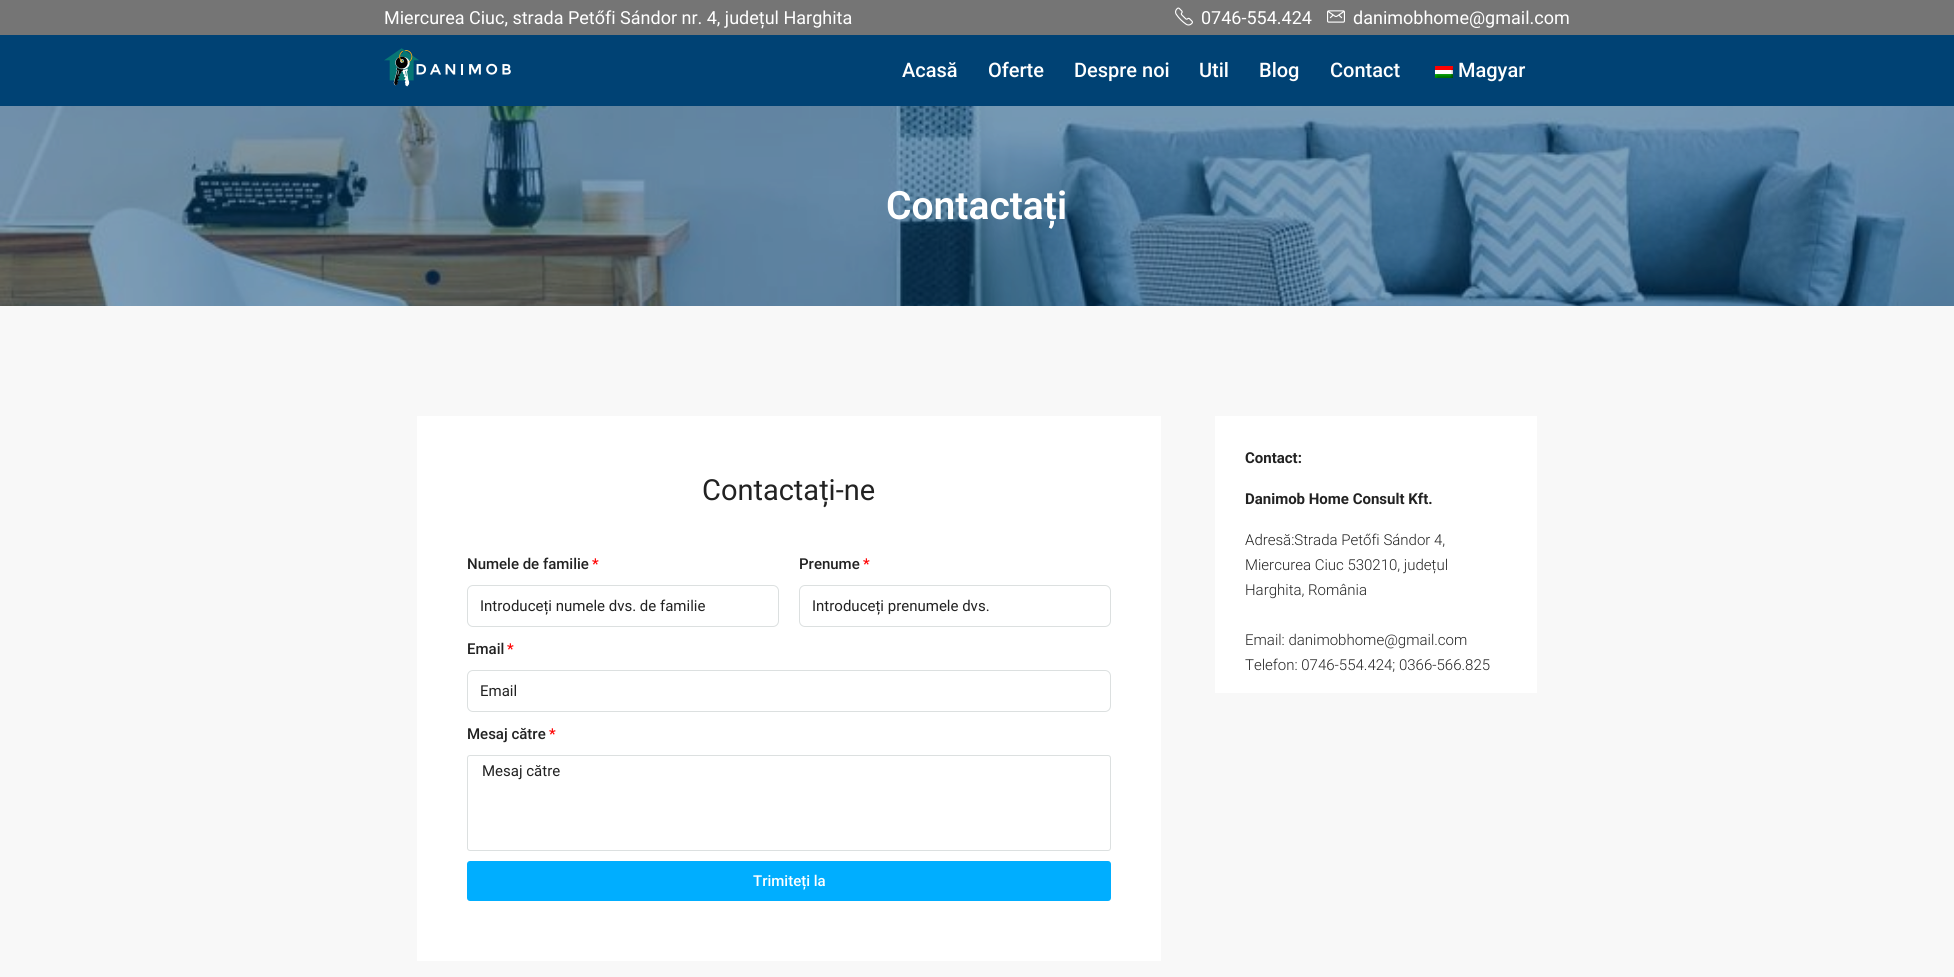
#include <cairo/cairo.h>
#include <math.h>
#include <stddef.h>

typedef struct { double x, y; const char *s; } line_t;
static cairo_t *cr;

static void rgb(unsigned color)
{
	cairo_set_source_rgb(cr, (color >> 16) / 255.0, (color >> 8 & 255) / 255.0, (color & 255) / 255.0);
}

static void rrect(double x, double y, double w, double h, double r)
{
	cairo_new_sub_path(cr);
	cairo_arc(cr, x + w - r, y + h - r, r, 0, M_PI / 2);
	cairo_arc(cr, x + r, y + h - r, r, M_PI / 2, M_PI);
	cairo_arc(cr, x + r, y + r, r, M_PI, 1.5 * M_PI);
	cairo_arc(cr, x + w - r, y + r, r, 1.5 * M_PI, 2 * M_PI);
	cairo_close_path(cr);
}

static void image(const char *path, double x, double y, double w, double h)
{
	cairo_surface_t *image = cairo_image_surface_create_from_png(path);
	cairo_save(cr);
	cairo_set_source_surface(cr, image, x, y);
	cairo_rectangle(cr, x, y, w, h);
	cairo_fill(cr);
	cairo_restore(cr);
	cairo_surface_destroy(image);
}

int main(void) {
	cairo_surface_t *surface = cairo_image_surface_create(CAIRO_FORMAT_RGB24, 1954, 977);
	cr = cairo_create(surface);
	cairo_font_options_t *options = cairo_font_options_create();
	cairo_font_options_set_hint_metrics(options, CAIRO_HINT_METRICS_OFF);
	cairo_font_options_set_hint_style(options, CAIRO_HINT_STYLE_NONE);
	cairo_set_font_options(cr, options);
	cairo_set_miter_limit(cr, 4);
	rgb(0xf8f8f8);
	cairo_paint(cr);
	rgb(0x757575);
	cairo_rectangle(cr, 0, 0, 1954, 35);
	cairo_fill(cr);
	image("img/1.png", 1175, 7, 18, 19);
	image("img/2.png", 1327, 10, 18, 13);
	rgb(0x004274);
	cairo_rectangle(cr, 0, 35, 1954, 71);
	cairo_fill(cr);
	image("img/3.png", 384, 48, 127, 39);
	image("img/4.png", 1435, 66, 18, 12);
	image("img/5.png", 0, 106, 1954, 200);
	rgb(0xffffff);
	cairo_rectangle(cr, 417, 416, 744, 545);
	cairo_fill(cr);
	rrect(467.5, 585.5, 311, 41, 5.5);
	rgb(0xdce0e0);
	cairo_set_line_width(cr, 1);
	cairo_stroke(cr);
	rrect(799.5, 585.5, 311, 41, 5.5);
	cairo_stroke(cr);
	rrect(467.5, 670.5, 643, 41, 5.5);
	cairo_stroke(cr);
	rrect(467.5, 755.5, 643, 95, 2.5);
	cairo_stroke(cr);
	rgb(0x00aeff);
	rrect(467, 861, 644, 40, 3);
	cairo_fill(cr);
	rgb(0xffffff);
	cairo_rectangle(cr, 1215, 416, 322, 277);
	cairo_fill(cr);
	cairo_select_font_face(cr, "Roboto", CAIRO_FONT_SLANT_NORMAL, CAIRO_FONT_WEIGHT_NORMAL);
	cairo_set_font_size(cr, 18);
	{
		static const line_t items[] = {
			{384, 24, "Miercurea Ciuc, strada Petőfi Sándor nr. 4, județul Harghita"},
			{1201, 24, "0746-554.424"},
			{1353, 24, "danimobhome@gmail.com"},
		};
		for (size_t i = 0; i < sizeof items / sizeof *items; i++) {
			cairo_move_to(cr, items[i].x, items[i].y);
			cairo_show_text(cr, items[i].s);
		}
	}
	cairo_select_font_face(cr, "Roboto Medium", CAIRO_FONT_SLANT_NORMAL, CAIRO_FONT_WEIGHT_NORMAL);
	cairo_set_font_size(cr, 20);
	{
		static const line_t items[] = {
			{902, 77, "Acasă"},
			{988, 77, "Oferte"},
			{1074, 77, "Despre noi"},
			{1199, 77, "Util"},
			{1259, 77, "Blog"},
			{1330, 77, "Contact"},
			{1458, 77, "Magyar"},
		};
		for (size_t i = 0; i < sizeof items / sizeof *items; i++) {
			cairo_move_to(cr, items[i].x, items[i].y);
			cairo_show_text(cr, items[i].s);
		}
	}
	cairo_select_font_face(cr, "Roboto SemiBold", CAIRO_FONT_SLANT_NORMAL, CAIRO_FONT_WEIGHT_NORMAL);
	cairo_set_font_size(cr, 39);
	cairo_move_to(cr, 886, 219);
	cairo_show_text(cr, "Contactați");
	cairo_select_font_face(cr, "Roboto", CAIRO_FONT_SLANT_NORMAL, CAIRO_FONT_WEIGHT_NORMAL);
	cairo_set_font_size(cr, 29);
	rgb(0x222222);
	cairo_move_to(cr, 702, 500);
	cairo_show_text(cr, "Contactați-ne");
	cairo_select_font_face(cr, "Roboto Medium", CAIRO_FONT_SLANT_NORMAL, CAIRO_FONT_WEIGHT_NORMAL);
	cairo_set_font_size(cr, 15);
	cairo_move_to(cr, 467, 569);
	cairo_show_text(cr, "Numele de familie");
	rgb(0xff0000);
	cairo_move_to(cr, 592, 569);
	cairo_show_text(cr, "*");
	cairo_select_font_face(cr, "Roboto", CAIRO_FONT_SLANT_NORMAL, CAIRO_FONT_WEIGHT_NORMAL);
	rgb(0x222222);
	cairo_move_to(cr, 480, 611);
	cairo_show_text(cr, "Introduceți numele dvs. de familie");
	cairo_select_font_face(cr, "Roboto Medium", CAIRO_FONT_SLANT_NORMAL, CAIRO_FONT_WEIGHT_NORMAL);
	cairo_move_to(cr, 799, 569);
	cairo_show_text(cr, "Prenume");
	rgb(0xff0000);
	cairo_move_to(cr, 863, 569);
	cairo_show_text(cr, "*");
	cairo_select_font_face(cr, "Roboto", CAIRO_FONT_SLANT_NORMAL, CAIRO_FONT_WEIGHT_NORMAL);
	rgb(0x222222);
	cairo_move_to(cr, 812, 611);
	cairo_show_text(cr, "Introduceți prenumele dvs.");
	cairo_select_font_face(cr, "Roboto Medium", CAIRO_FONT_SLANT_NORMAL, CAIRO_FONT_WEIGHT_NORMAL);
	cairo_move_to(cr, 467, 654);
	cairo_show_text(cr, "Email");
	rgb(0xff0000);
	cairo_move_to(cr, 507, 654);
	cairo_show_text(cr, "*");
	cairo_select_font_face(cr, "Roboto", CAIRO_FONT_SLANT_NORMAL, CAIRO_FONT_WEIGHT_NORMAL);
	rgb(0x222222);
	cairo_move_to(cr, 480, 696);
	cairo_show_text(cr, "Email");
	cairo_select_font_face(cr, "Roboto Medium", CAIRO_FONT_SLANT_NORMAL, CAIRO_FONT_WEIGHT_NORMAL);
	cairo_move_to(cr, 467, 739);
	cairo_show_text(cr, "Mesaj către");
	rgb(0xff0000);
	cairo_move_to(cr, 549, 739);
	cairo_show_text(cr, "*");
	cairo_select_font_face(cr, "Roboto", CAIRO_FONT_SLANT_NORMAL, CAIRO_FONT_WEIGHT_NORMAL);
	rgb(0x222222);
	cairo_move_to(cr, 482, 776);
	cairo_show_text(cr, "Mesaj către");
	cairo_select_font_face(cr, "Roboto Medium", CAIRO_FONT_SLANT_NORMAL, CAIRO_FONT_WEIGHT_NORMAL);
	rgb(0xffffff);
	cairo_move_to(cr, 753, 886);
	cairo_show_text(cr, "Trimiteți la");
	cairo_select_font_face(cr, "Roboto", CAIRO_FONT_SLANT_NORMAL, CAIRO_FONT_WEIGHT_BOLD);
	rgb(0x222222);
	cairo_move_to(cr, 1245, 463);
	cairo_show_text(cr, "Contact:");
	cairo_move_to(cr, 1245, 504);
	cairo_show_text(cr, "Danimob Home Consult Kft.");
	cairo_select_font_face(cr, "Roboto Light", CAIRO_FONT_SLANT_NORMAL, CAIRO_FONT_WEIGHT_NORMAL);
	{
		static const line_t items[] = {
			{1245, 545, "Adresă:Strada Petőfi Sándor 4,"},
			{1245, 570, "Miercurea Ciuc 530210, județul"},
			{1245, 595, "Harghita, România"},
			{1245, 645, "Email: danimobhome@gmail.com"},
			{1245, 670, "Telefon: 0746-554.424; 0366-566.825"},
		};
		for (size_t i = 0; i < sizeof items / sizeof *items; i++) {
			cairo_move_to(cr, items[i].x, items[i].y);
			cairo_show_text(cr, items[i].s);
		}
	}
	cairo_surface_write_to_png(surface, "page.png");
	cairo_font_options_destroy(options);
	cairo_destroy(cr);
	cairo_surface_destroy(surface);
	return 0;
}
